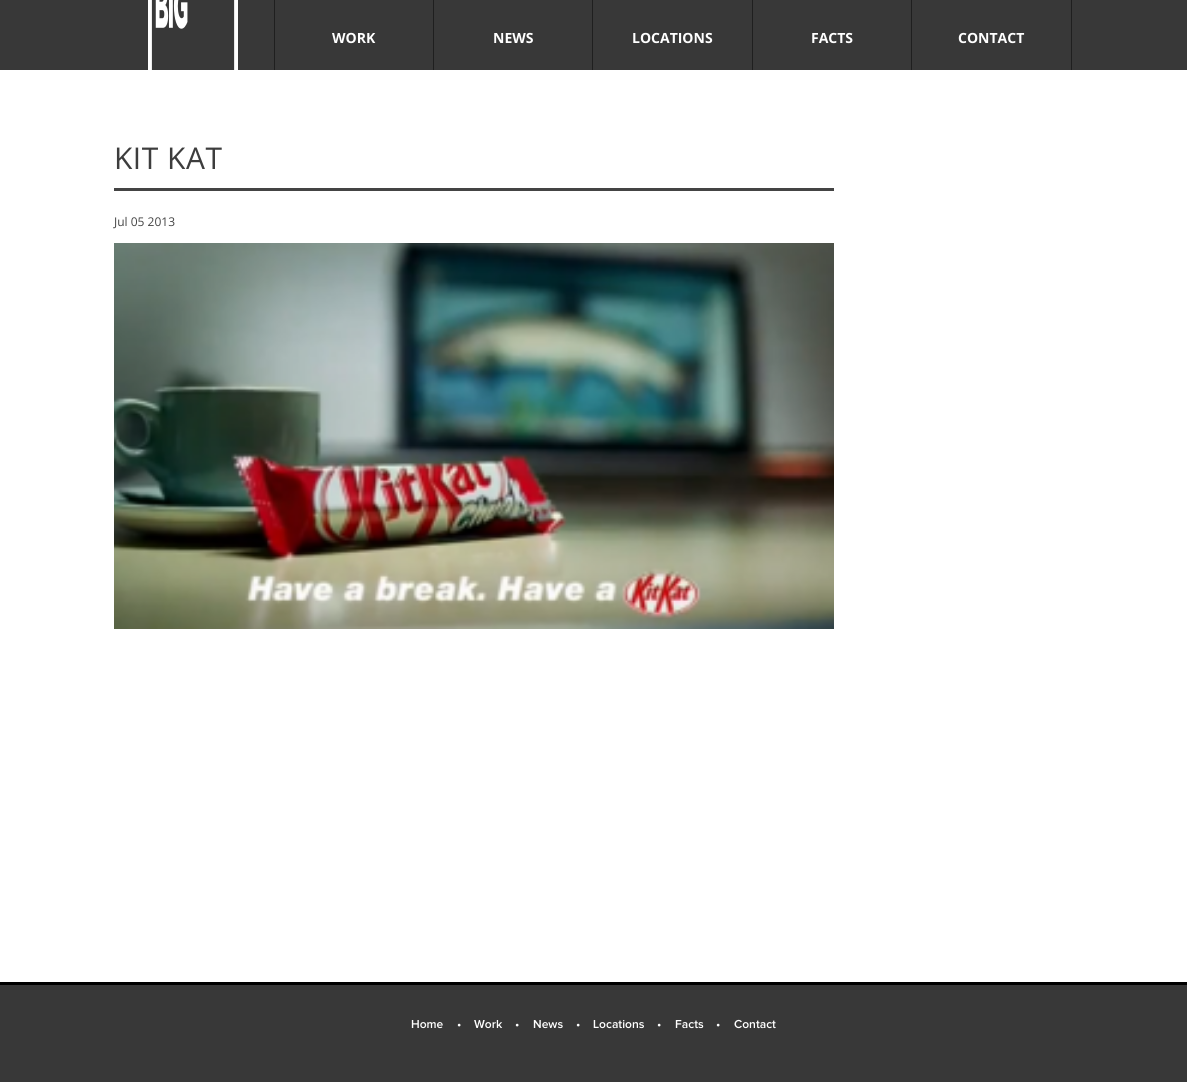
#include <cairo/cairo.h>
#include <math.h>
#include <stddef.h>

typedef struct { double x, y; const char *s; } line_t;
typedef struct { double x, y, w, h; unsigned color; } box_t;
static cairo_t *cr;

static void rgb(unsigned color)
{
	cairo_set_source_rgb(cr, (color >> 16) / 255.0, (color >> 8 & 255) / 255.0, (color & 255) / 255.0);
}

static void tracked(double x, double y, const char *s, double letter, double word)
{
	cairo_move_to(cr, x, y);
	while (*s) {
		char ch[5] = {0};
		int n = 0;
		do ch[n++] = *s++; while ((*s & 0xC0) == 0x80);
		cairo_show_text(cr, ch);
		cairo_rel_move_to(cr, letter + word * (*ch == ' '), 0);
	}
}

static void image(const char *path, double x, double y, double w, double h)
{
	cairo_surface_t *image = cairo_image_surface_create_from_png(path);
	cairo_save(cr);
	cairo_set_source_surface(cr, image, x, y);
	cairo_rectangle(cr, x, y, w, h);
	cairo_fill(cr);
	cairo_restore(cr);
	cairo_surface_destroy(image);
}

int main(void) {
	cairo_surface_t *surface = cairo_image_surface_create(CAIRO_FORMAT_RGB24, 1187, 1082);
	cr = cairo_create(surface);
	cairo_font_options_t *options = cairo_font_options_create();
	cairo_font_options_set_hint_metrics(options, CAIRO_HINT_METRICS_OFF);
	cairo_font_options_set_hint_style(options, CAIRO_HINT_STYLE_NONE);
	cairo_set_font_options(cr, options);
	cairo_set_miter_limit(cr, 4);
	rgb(0xffffff);
	cairo_paint(cr);
	rgb(0x383838);
	cairo_rectangle(cr, 0, 0, 1187, 70);
	cairo_fill(cr);
	image("img/1.png", 148, 0, 90, 70);
	{
		static const box_t items[] = {
			{274, 0, 1, 70, 0x1f1f1f},
			{433, 0, 1, 70, 0x1f1f1f},
			{592, 0, 1, 70, 0x1f1f1f},
			{752, 0, 1, 70, 0x1f1f1f},
			{1071, 0, 1, 70, 0x1f1f1f},
			{911, 0, 1, 70, 0x1f1f1f},
			{114, 188, 720, 3, 0x444444},
		};
		for (size_t i = 0; i < sizeof items / sizeof *items; i++) {
			rgb(items[i].color);
			cairo_rectangle(cr, items[i].x, items[i].y, items[i].w, items[i].h);
			cairo_fill(cr);
		}
	}
	image("img/2.png", 114, 243, 720, 386);
	rgb(0x383838);
	cairo_rectangle(cr, 0, 985, 1187, 97);
	cairo_fill(cr);
	rgb(0x000000);
	cairo_rectangle(cr, 0, 982, 1187, 3);
	cairo_fill(cr);
	cairo_select_font_face(cr, "Open Sans", CAIRO_FONT_SLANT_NORMAL, CAIRO_FONT_WEIGHT_BOLD);
	cairo_set_font_size(cr, 14);
	rgb(0xffffff);
	{
		static const line_t items[] = {
			{332, 43, "WORK"},
			{493, 43, "NEWS"},
			{632, 43, "LOCATIONS"},
			{811, 43, "FACTS"},
			{958, 43, "CONTACT"},
		};
		for (size_t i = 0; i < sizeof items / sizeof *items; i++) {
			cairo_move_to(cr, items[i].x, items[i].y);
			cairo_show_text(cr, items[i].s);
		}
	}
	cairo_select_font_face(cr, "Open Sans", CAIRO_FONT_SLANT_NORMAL, CAIRO_FONT_WEIGHT_NORMAL);
	cairo_set_font_size(cr, 30);
	rgb(0x3d3d3d);
	tracked(114, 169, "KIT KAT", 0.5, 0);
	cairo_set_font_size(cr, 12);
	rgb(0x444444);
	cairo_move_to(cr, 114, 226);
	cairo_show_text(cr, "Jul 05 2013");
	cairo_select_font_face(cr, "Proxima Nova SemiBold", CAIRO_FONT_SLANT_NORMAL, CAIRO_FONT_WEIGHT_NORMAL);
	rgb(0xffffff);
	{
		static const line_t items[] = {
			{411, 1028, "Home"},
			{457, 1028, "•"},
			{474, 1028, "Work"},
			{515, 1028, "•"},
			{533, 1028, "News"},
			{576, 1028, "•"},
			{593, 1028, "Locations"},
			{657, 1028, "•"},
			{675, 1028, "Facts"},
			{716, 1028, "•"},
			{734, 1028, "Contact"},
		};
		for (size_t i = 0; i < sizeof items / sizeof *items; i++) {
			cairo_move_to(cr, items[i].x, items[i].y);
			cairo_show_text(cr, items[i].s);
		}
	}
	cairo_surface_write_to_png(surface, "page.png");
	cairo_font_options_destroy(options);
	cairo_destroy(cr);
	cairo_surface_destroy(surface);
	return 0;
}
